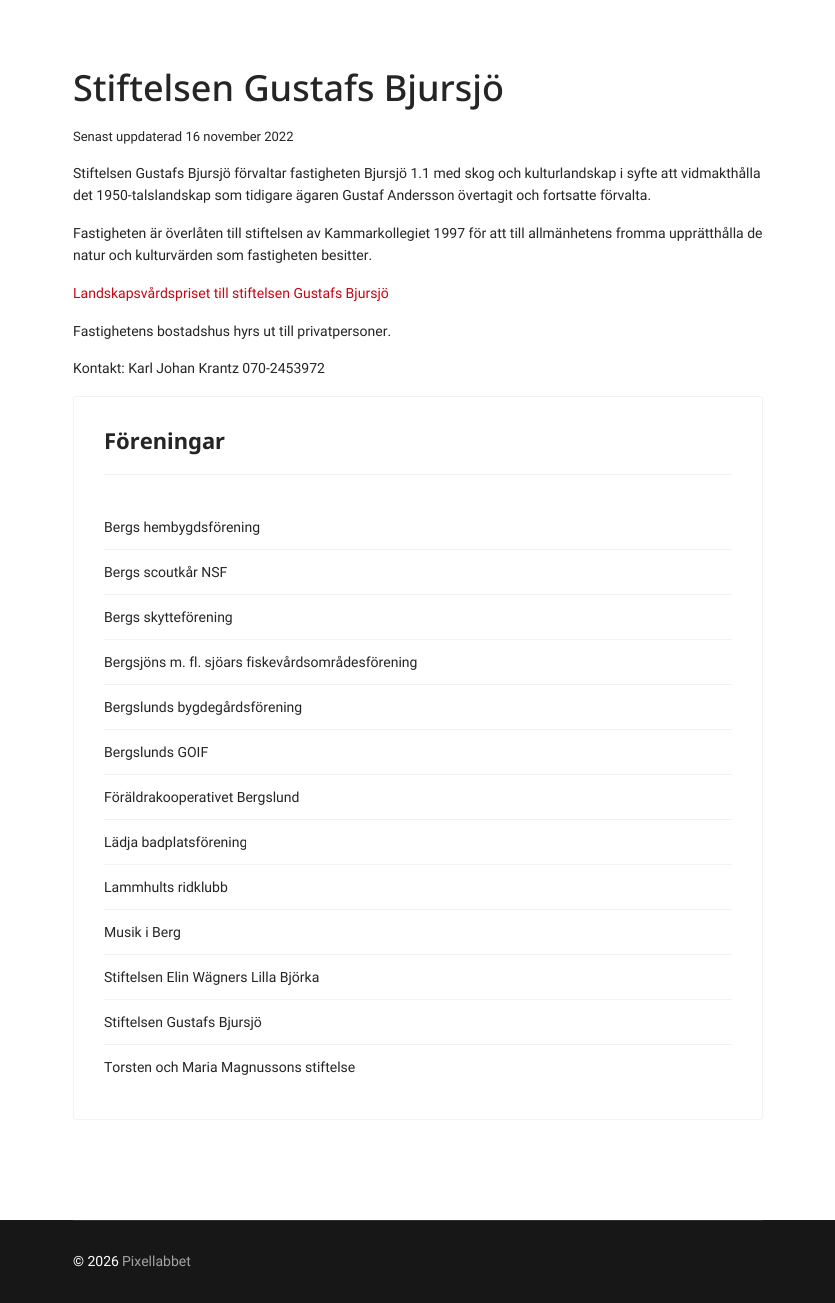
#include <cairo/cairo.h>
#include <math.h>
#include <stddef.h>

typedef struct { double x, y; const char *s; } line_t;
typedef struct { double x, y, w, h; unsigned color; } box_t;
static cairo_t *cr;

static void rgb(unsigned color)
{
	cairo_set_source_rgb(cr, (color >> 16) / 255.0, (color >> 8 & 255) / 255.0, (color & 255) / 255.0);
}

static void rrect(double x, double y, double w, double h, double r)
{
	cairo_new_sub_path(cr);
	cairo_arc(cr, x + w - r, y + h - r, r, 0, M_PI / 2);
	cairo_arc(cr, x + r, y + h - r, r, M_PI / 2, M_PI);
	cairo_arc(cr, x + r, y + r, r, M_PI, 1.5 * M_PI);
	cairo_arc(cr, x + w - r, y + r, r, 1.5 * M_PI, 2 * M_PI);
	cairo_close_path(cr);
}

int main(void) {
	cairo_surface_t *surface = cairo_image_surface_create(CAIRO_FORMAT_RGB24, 835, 1303);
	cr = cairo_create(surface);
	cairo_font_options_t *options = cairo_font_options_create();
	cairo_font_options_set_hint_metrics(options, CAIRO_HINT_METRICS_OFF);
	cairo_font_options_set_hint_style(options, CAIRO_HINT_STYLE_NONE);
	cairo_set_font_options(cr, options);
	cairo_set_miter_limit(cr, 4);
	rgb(0xffffff);
	cairo_paint(cr);
	rrect(73.5, 396.5, 689, 723, 2.5);
	rgb(0xf3f3f3);
	cairo_set_line_width(cr, 1);
	cairo_stroke(cr);
	{
		static const box_t items[] = {
			{104, 474, 628, 1, 0xf3f3f3},
			{104, 549, 628, 1, 0xf3f3f3},
			{104, 594, 628, 1, 0xf3f3f3},
			{104, 639, 628, 1, 0xf3f3f3},
			{104, 684, 628, 1, 0xf3f3f3},
			{104, 729, 628, 1, 0xf3f3f3},
			{104, 774, 628, 1, 0xf3f3f3},
			{104, 819, 628, 1, 0xf3f3f3},
			{104, 864, 628, 1, 0xf3f3f3},
			{104, 909, 628, 1, 0xf3f3f3},
			{104, 954, 628, 1, 0xf3f3f3},
			{104, 999, 628, 1, 0xf3f3f3},
			{104, 1044, 628, 1, 0xf3f3f3},
			{0, 1220, 835, 83, 0x171717},
			{73, 1220, 690, 1, 0x2e2e2e},
		};
		for (size_t i = 0; i < sizeof items / sizeof *items; i++) {
			rgb(items[i].color);
			cairo_rectangle(cr, items[i].x, items[i].y, items[i].w, items[i].h);
			cairo_fill(cr);
		}
	}
	cairo_select_font_face(cr, "Noto Sans Medium", CAIRO_FONT_SLANT_NORMAL, CAIRO_FONT_WEIGHT_NORMAL);
	cairo_set_font_size(cr, 36);
	rgb(0x252525);
	cairo_move_to(cr, 73, 101);
	cairo_show_text(cr, "Stiftelsen Gustafs Bjursjö");
	cairo_select_font_face(cr, "Roboto", CAIRO_FONT_SLANT_NORMAL, CAIRO_FONT_WEIGHT_NORMAL);
	cairo_set_font_size(cr, 13);
	cairo_move_to(cr, 73, 141);
	cairo_show_text(cr, "Senast uppdaterad 16 november 2022");
	cairo_set_font_size(cr, 14);
	{
		static const line_t items[] = {
			{73, 178, "Stiftelsen Gustafs Bjursjö förvaltar fastigheten Bjursjö 1.1 med skog och kulturlandskap i syfte att vidmakthålla"},
			{73, 200, "det 1950-talslandskap som tidigare ägaren Gustaf Andersson övertagit och fortsatte förvalta."},
			{73, 238, "Fastigheten är överlåten till stiftelsen av Kammarkollegiet 1997 för att till allmänhetens fromma upprätthålla de"},
			{73, 260, "natur och kulturvärden som fastigheten besitter."},
		};
		for (size_t i = 0; i < sizeof items / sizeof *items; i++) {
			cairo_move_to(cr, items[i].x, items[i].y);
			cairo_show_text(cr, items[i].s);
		}
	}
	rgb(0xc70513);
	cairo_move_to(cr, 73, 298);
	cairo_show_text(cr, "Landskapsvårdspriset till stiftelsen Gustafs Bjursjö");
	rgb(0x252525);
	cairo_move_to(cr, 73, 336);
	cairo_show_text(cr, "Fastighetens bostadshus hyrs ut till privatpersoner.");
	cairo_move_to(cr, 73, 373);
	cairo_show_text(cr, "Kontakt: Karl Johan Krantz 070-2453972");
	cairo_select_font_face(cr, "Noto Sans", CAIRO_FONT_SLANT_NORMAL, CAIRO_FONT_WEIGHT_BOLD);
	cairo_set_font_size(cr, 22);
	cairo_move_to(cr, 104, 449);
	cairo_show_text(cr, "Föreningar");
	cairo_select_font_face(cr, "Roboto", CAIRO_FONT_SLANT_NORMAL, CAIRO_FONT_WEIGHT_NORMAL);
	cairo_set_font_size(cr, 14);
	{
		static const line_t items[] = {
			{104, 532, "Bergs hembygdsförening"},
			{104, 577, "Bergs scoutkår NSF"},
			{104, 622, "Bergs skytteförening"},
			{104, 667, "Bergsjöns m. fl. sjöars fiskevårdsområdesförening"},
			{104, 712, "Bergslunds bygdegårdsförening"},
			{104, 757, "Bergslunds GOIF"},
			{104, 802, "Föräldrakooperativet Bergslund"},
			{104, 847, "Lädja badplatsförening"},
			{104, 892, "Lammhults ridklubb"},
			{104, 937, "Musik i Berg"},
			{104, 982, "Stiftelsen Elin Wägners Lilla Björka"},
			{104, 1027, "Stiftelsen Gustafs Bjursjö"},
			{104, 1072, "Torsten och Maria Magnussons stiftelse"},
		};
		for (size_t i = 0; i < sizeof items / sizeof *items; i++) {
			cairo_move_to(cr, items[i].x, items[i].y);
			cairo_show_text(cr, items[i].s);
		}
	}
	rgb(0xffffff);
	cairo_move_to(cr, 73, 1266);
	cairo_show_text(cr, "© 2026");
	rgb(0xa2a2a2);
	cairo_move_to(cr, 122, 1266);
	cairo_show_text(cr, "Pixellabbet");
	cairo_surface_write_to_png(surface, "page.png");
	cairo_font_options_destroy(options);
	cairo_destroy(cr);
	cairo_surface_destroy(surface);
	return 0;
}
